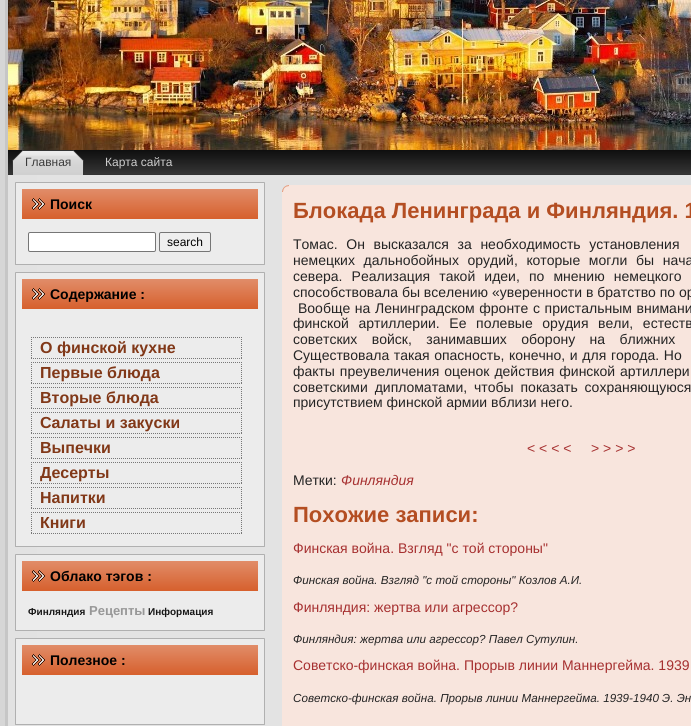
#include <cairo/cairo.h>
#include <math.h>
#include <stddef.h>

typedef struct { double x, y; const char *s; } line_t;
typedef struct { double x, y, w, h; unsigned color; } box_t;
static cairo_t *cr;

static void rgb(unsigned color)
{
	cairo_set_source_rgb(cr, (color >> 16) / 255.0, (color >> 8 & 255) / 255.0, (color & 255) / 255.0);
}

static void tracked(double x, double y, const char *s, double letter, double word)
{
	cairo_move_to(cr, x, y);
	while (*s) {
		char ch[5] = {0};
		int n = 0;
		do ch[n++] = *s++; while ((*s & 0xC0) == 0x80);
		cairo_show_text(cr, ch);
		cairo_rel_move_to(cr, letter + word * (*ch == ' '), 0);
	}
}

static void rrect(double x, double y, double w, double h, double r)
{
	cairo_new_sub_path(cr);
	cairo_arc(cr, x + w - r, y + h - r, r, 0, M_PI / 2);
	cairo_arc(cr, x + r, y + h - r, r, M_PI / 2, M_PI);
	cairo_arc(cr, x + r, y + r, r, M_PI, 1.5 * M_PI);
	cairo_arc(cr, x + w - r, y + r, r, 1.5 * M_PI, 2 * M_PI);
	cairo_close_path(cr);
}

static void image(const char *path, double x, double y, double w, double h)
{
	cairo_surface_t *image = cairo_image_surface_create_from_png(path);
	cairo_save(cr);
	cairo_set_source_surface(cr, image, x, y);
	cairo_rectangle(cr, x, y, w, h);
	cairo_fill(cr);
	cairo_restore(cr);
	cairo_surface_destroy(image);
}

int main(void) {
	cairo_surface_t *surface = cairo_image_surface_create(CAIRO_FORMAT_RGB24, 691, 726);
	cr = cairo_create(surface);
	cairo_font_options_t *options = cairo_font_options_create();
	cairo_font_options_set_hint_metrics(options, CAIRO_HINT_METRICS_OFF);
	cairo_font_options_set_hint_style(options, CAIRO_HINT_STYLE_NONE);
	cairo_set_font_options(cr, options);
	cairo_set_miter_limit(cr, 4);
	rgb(0xd6d6d6);
	cairo_paint(cr);
	image("img/1.png", 5, 0, 3, 29);
	image("img/2.png", 5, 29, 32, 697);
	image("img/3.png", 8, 0, 683, 150);
	image("img/4.png", 8, 150, 683, 25);
	image("img/5.png", 12, 150, 11, 25);
	image("img/6.png", 73, 150, 11, 25);
	image("img/7.png", 23, 150, 50, 25);
	{
		static const box_t items[] = {
			{15, 182, 1, 1, 0xbababa},
			{37, 175, 654, 551, 0xe3e3e3},
			{16, 182, 248, 1, 0xb0b0b0},
			{264, 182, 1, 1, 0xbababa},
			{15, 183, 1, 81, 0xb0b0b0},
			{16, 183, 248, 81, 0xececec},
			{264, 183, 1, 81, 0xb0b0b0},
		};
		for (size_t i = 0; i < sizeof items / sizeof *items; i++) {
			rgb(items[i].color);
			cairo_rectangle(cr, items[i].x, items[i].y, items[i].w, items[i].h);
			cairo_fill(cr);
		}
	}
	image("img/8.png", 22, 189, 236, 30);
	image("img/9.png", 32, 198, 13, 12);
	rgb(0xffffff);
	rrect(28.5, 232.5, 127, 19, 1.5);
	cairo_fill_preserve(cr);
	rgb(0x767676);
	cairo_set_line_width(cr, 1);
	cairo_stroke(cr);
	rgb(0xefefef);
	rrect(159.5, 232.5, 51, 19, 1.5);
	cairo_fill_preserve(cr);
	rgb(0x767676);
	cairo_stroke(cr);
	{
		static const box_t items[] = {
			{15, 264, 1, 1, 0xb3b3b3},
			{16, 264, 248, 1, 0xb0b0b0},
			{264, 264, 1, 1, 0xb4b4b4},
			{15, 272, 1, 1, 0xbababa},
			{16, 272, 248, 1, 0xb0b0b0},
			{264, 272, 1, 1, 0xbababa},
			{15, 273, 1, 273, 0xb0b0b0},
			{16, 273, 248, 273, 0xececec},
			{264, 273, 1, 273, 0xb0b0b0},
		};
		for (size_t i = 0; i < sizeof items / sizeof *items; i++) {
			rgb(items[i].color);
			cairo_rectangle(cr, items[i].x, items[i].y, items[i].w, items[i].h);
			cairo_fill(cr);
		}
	}
	image("img/8.png", 22, 279, 236, 30);
	image("img/9.png", 32, 288, 13, 12);
	cairo_new_path(cr);
	cairo_move_to(cr, 31, 337.5);
	cairo_line_to(cr, 242, 337.5);
	rgb(0x777777);
	cairo_set_dash(cr, (double[]){1, 1}, 2, 0);
	cairo_stroke(cr);
	cairo_new_path(cr);
	cairo_move_to(cr, 241.5, 337);
	cairo_line_to(cr, 241.5, 359);
	cairo_stroke(cr);
	cairo_new_path(cr);
	cairo_move_to(cr, 31, 358.5);
	cairo_line_to(cr, 242, 358.5);
	cairo_stroke(cr);
	cairo_new_path(cr);
	cairo_move_to(cr, 31.5, 337);
	cairo_line_to(cr, 31.5, 359);
	cairo_stroke(cr);
	cairo_new_path(cr);
	cairo_move_to(cr, 31, 362.5);
	cairo_line_to(cr, 242, 362.5);
	cairo_stroke(cr);
	cairo_new_path(cr);
	cairo_move_to(cr, 241.5, 362);
	cairo_line_to(cr, 241.5, 384);
	cairo_stroke(cr);
	cairo_new_path(cr);
	cairo_move_to(cr, 31, 383.5);
	cairo_line_to(cr, 242, 383.5);
	cairo_stroke(cr);
	cairo_new_path(cr);
	cairo_move_to(cr, 31.5, 362);
	cairo_line_to(cr, 31.5, 384);
	cairo_stroke(cr);
	cairo_new_path(cr);
	cairo_move_to(cr, 31, 387.5);
	cairo_line_to(cr, 242, 387.5);
	cairo_stroke(cr);
	cairo_new_path(cr);
	cairo_move_to(cr, 241.5, 387);
	cairo_line_to(cr, 241.5, 409);
	cairo_stroke(cr);
	cairo_new_path(cr);
	cairo_move_to(cr, 31, 408.5);
	cairo_line_to(cr, 242, 408.5);
	cairo_stroke(cr);
	cairo_new_path(cr);
	cairo_move_to(cr, 31.5, 387);
	cairo_line_to(cr, 31.5, 409);
	cairo_stroke(cr);
	cairo_new_path(cr);
	cairo_move_to(cr, 31, 412.5);
	cairo_line_to(cr, 242, 412.5);
	cairo_stroke(cr);
	cairo_new_path(cr);
	cairo_move_to(cr, 241.5, 412);
	cairo_line_to(cr, 241.5, 434);
	cairo_stroke(cr);
	cairo_new_path(cr);
	cairo_move_to(cr, 31, 433.5);
	cairo_line_to(cr, 242, 433.5);
	cairo_stroke(cr);
	cairo_new_path(cr);
	cairo_move_to(cr, 31.5, 412);
	cairo_line_to(cr, 31.5, 434);
	cairo_stroke(cr);
	cairo_new_path(cr);
	cairo_move_to(cr, 31, 437.5);
	cairo_line_to(cr, 242, 437.5);
	cairo_stroke(cr);
	cairo_new_path(cr);
	cairo_move_to(cr, 241.5, 437);
	cairo_line_to(cr, 241.5, 459);
	cairo_stroke(cr);
	cairo_new_path(cr);
	cairo_move_to(cr, 31, 458.5);
	cairo_line_to(cr, 242, 458.5);
	cairo_stroke(cr);
	cairo_new_path(cr);
	cairo_move_to(cr, 31.5, 437);
	cairo_line_to(cr, 31.5, 459);
	cairo_stroke(cr);
	cairo_new_path(cr);
	cairo_move_to(cr, 31, 462.5);
	cairo_line_to(cr, 242, 462.5);
	cairo_stroke(cr);
	cairo_new_path(cr);
	cairo_move_to(cr, 241.5, 462);
	cairo_line_to(cr, 241.5, 484);
	cairo_stroke(cr);
	cairo_new_path(cr);
	cairo_move_to(cr, 31, 483.5);
	cairo_line_to(cr, 242, 483.5);
	cairo_stroke(cr);
	cairo_new_path(cr);
	cairo_move_to(cr, 31.5, 462);
	cairo_line_to(cr, 31.5, 484);
	cairo_stroke(cr);
	cairo_new_path(cr);
	cairo_move_to(cr, 31, 487.5);
	cairo_line_to(cr, 242, 487.5);
	cairo_stroke(cr);
	cairo_new_path(cr);
	cairo_move_to(cr, 241.5, 487);
	cairo_line_to(cr, 241.5, 509);
	cairo_stroke(cr);
	cairo_new_path(cr);
	cairo_move_to(cr, 31, 508.5);
	cairo_line_to(cr, 242, 508.5);
	cairo_stroke(cr);
	cairo_new_path(cr);
	cairo_move_to(cr, 31.5, 487);
	cairo_line_to(cr, 31.5, 509);
	cairo_stroke(cr);
	cairo_new_path(cr);
	cairo_move_to(cr, 31, 512.5);
	cairo_line_to(cr, 242, 512.5);
	cairo_stroke(cr);
	cairo_new_path(cr);
	cairo_move_to(cr, 241.5, 512);
	cairo_line_to(cr, 241.5, 534);
	cairo_stroke(cr);
	cairo_new_path(cr);
	cairo_move_to(cr, 31, 533.5);
	cairo_line_to(cr, 242, 533.5);
	cairo_stroke(cr);
	cairo_new_path(cr);
	cairo_move_to(cr, 31.5, 512);
	cairo_line_to(cr, 31.5, 534);
	cairo_stroke(cr);
	{
		static const box_t items[] = {
			{15, 546, 1, 1, 0xb3b3b3},
			{16, 546, 248, 1, 0xb0b0b0},
			{264, 546, 1, 1, 0xb4b4b4},
			{15, 554, 1, 1, 0xbababa},
			{16, 554, 248, 1, 0xb0b0b0},
			{264, 554, 1, 1, 0xbababa},
			{15, 555, 1, 75, 0xb0b0b0},
			{16, 555, 248, 75, 0xececec},
			{264, 555, 1, 75, 0xb0b0b0},
		};
		for (size_t i = 0; i < sizeof items / sizeof *items; i++) {
			rgb(items[i].color);
			cairo_rectangle(cr, items[i].x, items[i].y, items[i].w, items[i].h);
			cairo_fill(cr);
		}
	}
	image("img/8.png", 22, 561, 236, 30);
	image("img/9.png", 32, 570, 13, 12);
	{
		static const box_t items[] = {
			{15, 630, 1, 1, 0xb3b3b3},
			{16, 630, 248, 1, 0xb0b0b0},
			{264, 630, 1, 1, 0xb4b4b4},
			{15, 638, 1, 1, 0xbababa},
			{16, 638, 248, 1, 0xb0b0b0},
			{264, 638, 1, 1, 0xbababa},
			{15, 639, 1, 85, 0xb0b0b0},
			{16, 639, 248, 85, 0xececec},
			{264, 639, 1, 85, 0xb0b0b0},
		};
		for (size_t i = 0; i < sizeof items / sizeof *items; i++) {
			rgb(items[i].color);
			cairo_rectangle(cr, items[i].x, items[i].y, items[i].w, items[i].h);
			cairo_fill(cr);
		}
	}
	image("img/8.png", 22, 645, 236, 30);
	image("img/9.png", 32, 654, 13, 12);
	{
		static const box_t items[] = {
			{15, 724, 1, 1, 0xb3b3b3},
			{16, 724, 248, 1, 0xb0b0b0},
			{264, 724, 1, 1, 0xb4b4b4},
		};
		for (size_t i = 0; i < sizeof items / sizeof *items; i++) {
			rgb(items[i].color);
			cairo_rectangle(cr, items[i].x, items[i].y, items[i].w, items[i].h);
			cairo_fill(cr);
		}
	}
	image("img/10.png", 282, 185, 7, 7);
	rgb(0xf8e5dd);
	cairo_rectangle(cr, 289, 185, 402, 541);
	cairo_fill(cr);
	cairo_rectangle(cr, 282, 192, 7, 534);
	cairo_fill(cr);
	cairo_select_font_face(cr, "Liberation Sans", CAIRO_FONT_SLANT_NORMAL, CAIRO_FONT_WEIGHT_NORMAL);
	cairo_set_font_size(cr, 12);
	rgb(0x3b3b3b);
	cairo_move_to(cr, 25, 166);
	cairo_show_text(cr, "Главная");
	rgb(0xcccccc);
	cairo_move_to(cr, 105, 166);
	cairo_show_text(cr, "Карта сайта");
	cairo_select_font_face(cr, "Liberation Sans", CAIRO_FONT_SLANT_NORMAL, CAIRO_FONT_WEIGHT_BOLD);
	cairo_set_font_size(cr, 14);
	rgb(0x000000);
	cairo_move_to(cr, 50, 209);
	cairo_show_text(cr, "Поиск");
	cairo_select_font_face(cr, "Liberation Sans", CAIRO_FONT_SLANT_NORMAL, CAIRO_FONT_WEIGHT_NORMAL);
	cairo_set_font_size(cr, 12);
	cairo_move_to(cr, 167, 246);
	cairo_show_text(cr, "search");
	cairo_select_font_face(cr, "Liberation Sans", CAIRO_FONT_SLANT_NORMAL, CAIRO_FONT_WEIGHT_BOLD);
	cairo_set_font_size(cr, 14);
	cairo_move_to(cr, 50, 299);
	cairo_show_text(cr, "Содержание :");
	cairo_set_font_size(cr, 16);
	rgb(0x813818);
	{
		static const line_t items[] = {
			{40, 353, "О финской кухне"},
			{40, 378, "Первые блюда"},
			{40, 403, "Вторые блюда"},
			{40, 428, "Салаты и закуски"},
			{40, 453, "Выпечки"},
			{40, 478, "Десерты"},
			{40, 503, "Напитки"},
			{40, 528, "Книги"},
		};
		for (size_t i = 0; i < sizeof items / sizeof *items; i++) {
			cairo_move_to(cr, items[i].x, items[i].y);
			cairo_show_text(cr, items[i].s);
		}
	}
	cairo_set_font_size(cr, 14);
	rgb(0x000000);
	cairo_move_to(cr, 50, 581);
	cairo_show_text(cr, "Облако тэгов :");
	cairo_set_font_size(cr, 10);
	rgb(0x171717);
	cairo_move_to(cr, 28, 615);
	cairo_show_text(cr, "Финляндия");
	cairo_set_font_size(cr, 13);
	rgb(0x979797);
	cairo_move_to(cr, 89, 615);
	cairo_show_text(cr, "Рецепты");
	cairo_set_font_size(cr, 10);
	rgb(0x171717);
	cairo_move_to(cr, 148, 615);
	cairo_show_text(cr, "Информация");
	cairo_set_font_size(cr, 14);
	rgb(0x000000);
	cairo_move_to(cr, 50, 665);
	cairo_show_text(cr, "Полезное :");
	cairo_set_font_size(cr, 22);
	rgb(0xb44e22);
	cairo_move_to(cr, 293, 218);
	cairo_show_text(cr, "Блокада Ленинграда и Финляндия. 1");
	cairo_select_font_face(cr, "Liberation Sans", CAIRO_FONT_SLANT_NORMAL, CAIRO_FONT_WEIGHT_NORMAL);
	cairo_set_font_size(cr, 14);
	rgb(0x242424);
	tracked(293, 249, "Томас. Он высказался за необходимость установления", 0, 4.75);
	tracked(293, 265, "немецких дальнобойных орудий, которые могли бы нача", 0, 4.75);
	tracked(293, 281, "севера. Реализация такой идеи, по мнению немецкого", 0, 5.25);
	cairo_move_to(cr, 293, 297);
	cairo_show_text(cr, "способствовала бы вселению «уверенности в братство по ор");
	tracked(298, 313, "Вообще на Ленинградском фронте с пристальным внимани", 0, 0.75);
	tracked(293, 328, "финской артиллерии. Ее полевые орудия вели, естеств", 0, 5.75);
	tracked(293, 344, "советских войск, занимавших оборону на ближних", 0, 10.5);
	tracked(293, 360, "Существовала такая опасность, конечно, и для города. Но", 0, 0.75);
	tracked(293, 376, "факты преувеличения оценок действия финской артиллери", 0, 1);
	tracked(293, 392, "советскими дипломатами, чтобы показать сохраняющуюся", 0, 3);
	cairo_move_to(cr, 293, 407);
	cairo_show_text(cr, "присутствием финской армии вблизи него.");
	rgb(0xa63030);
	cairo_move_to(cr, 527, 453);
	cairo_show_text(cr, "< < < <");
	cairo_move_to(cr, 591, 453);
	cairo_show_text(cr, "> > > >");
	rgb(0x242424);
	cairo_move_to(cr, 293, 485);
	cairo_show_text(cr, "Метки:");
	cairo_select_font_face(cr, "Liberation Sans", CAIRO_FONT_SLANT_ITALIC, CAIRO_FONT_WEIGHT_NORMAL);
	rgb(0xa63030);
	cairo_move_to(cr, 341, 485);
	cairo_show_text(cr, "Финляндия");
	cairo_select_font_face(cr, "Liberation Sans", CAIRO_FONT_SLANT_NORMAL, CAIRO_FONT_WEIGHT_BOLD);
	cairo_set_font_size(cr, 22);
	rgb(0xb44e22);
	cairo_move_to(cr, 293, 522);
	cairo_show_text(cr, "Похожие записи:");
	cairo_select_font_face(cr, "Liberation Sans", CAIRO_FONT_SLANT_NORMAL, CAIRO_FONT_WEIGHT_NORMAL);
	cairo_set_font_size(cr, 14);
	rgb(0xa63030);
	cairo_move_to(cr, 293, 553);
	cairo_show_text(cr, "Финская война. Взгляд \"с той стороны\"");
	cairo_select_font_face(cr, "Liberation Sans", CAIRO_FONT_SLANT_ITALIC, CAIRO_FONT_WEIGHT_NORMAL);
	cairo_set_font_size(cr, 11.65);
	rgb(0x242424);
	cairo_move_to(cr, 293, 584);
	cairo_show_text(cr, "Финская война. Взгляд \"с той стороны\" Козлов А.И.");
	cairo_select_font_face(cr, "Liberation Sans", CAIRO_FONT_SLANT_NORMAL, CAIRO_FONT_WEIGHT_NORMAL);
	cairo_set_font_size(cr, 14);
	rgb(0xa63030);
	cairo_move_to(cr, 293, 612);
	cairo_show_text(cr, "Финляндия: жертва или агрессор?");
	cairo_select_font_face(cr, "Liberation Sans", CAIRO_FONT_SLANT_ITALIC, CAIRO_FONT_WEIGHT_NORMAL);
	cairo_set_font_size(cr, 11.65);
	rgb(0x242424);
	cairo_move_to(cr, 293, 643);
	cairo_show_text(cr, "Финляндия: жертва или агрессор? Павел Сутулин.");
	cairo_select_font_face(cr, "Liberation Sans", CAIRO_FONT_SLANT_NORMAL, CAIRO_FONT_WEIGHT_NORMAL);
	cairo_set_font_size(cr, 14);
	rgb(0xa63030);
	cairo_move_to(cr, 293, 670);
	cairo_show_text(cr, "Советско-финская война. Прорыв линии Маннергейма. 1939");
	cairo_select_font_face(cr, "Liberation Sans", CAIRO_FONT_SLANT_ITALIC, CAIRO_FONT_WEIGHT_NORMAL);
	cairo_set_font_size(cr, 11.65);
	rgb(0x242424);
	cairo_move_to(cr, 293, 702);
	cairo_show_text(cr, "Советско-финская война. Прорыв линии Маннергейма. 1939-1940 Э. Эн");
	cairo_surface_write_to_png(surface, "page.png");
	cairo_font_options_destroy(options);
	cairo_destroy(cr);
	cairo_surface_destroy(surface);
	return 0;
}
